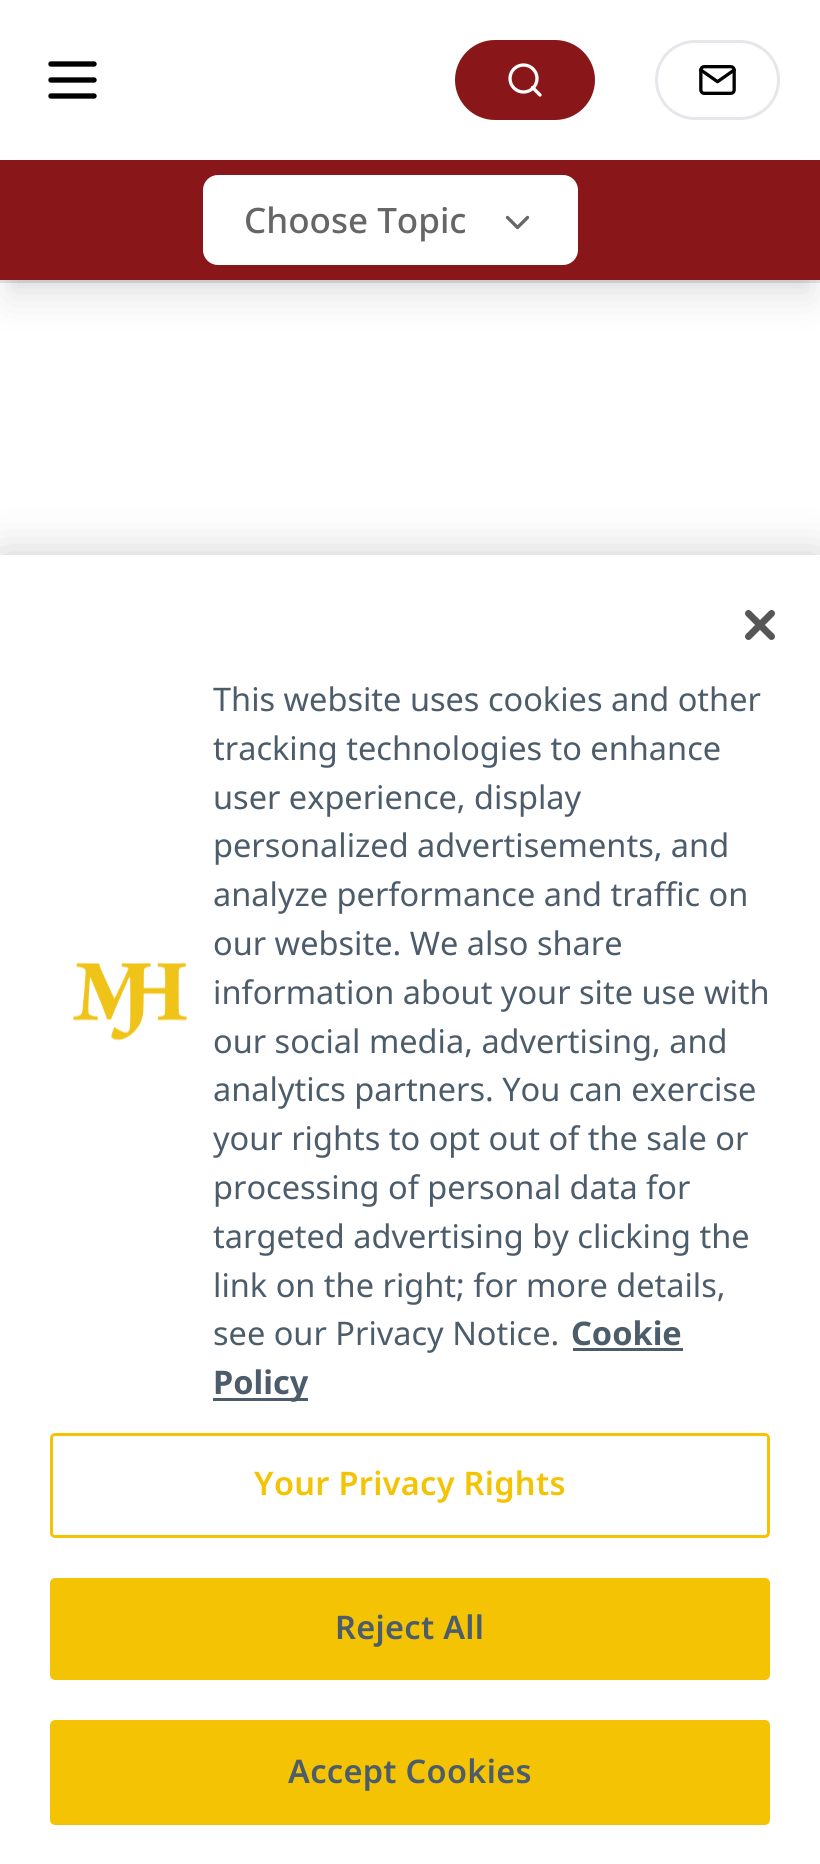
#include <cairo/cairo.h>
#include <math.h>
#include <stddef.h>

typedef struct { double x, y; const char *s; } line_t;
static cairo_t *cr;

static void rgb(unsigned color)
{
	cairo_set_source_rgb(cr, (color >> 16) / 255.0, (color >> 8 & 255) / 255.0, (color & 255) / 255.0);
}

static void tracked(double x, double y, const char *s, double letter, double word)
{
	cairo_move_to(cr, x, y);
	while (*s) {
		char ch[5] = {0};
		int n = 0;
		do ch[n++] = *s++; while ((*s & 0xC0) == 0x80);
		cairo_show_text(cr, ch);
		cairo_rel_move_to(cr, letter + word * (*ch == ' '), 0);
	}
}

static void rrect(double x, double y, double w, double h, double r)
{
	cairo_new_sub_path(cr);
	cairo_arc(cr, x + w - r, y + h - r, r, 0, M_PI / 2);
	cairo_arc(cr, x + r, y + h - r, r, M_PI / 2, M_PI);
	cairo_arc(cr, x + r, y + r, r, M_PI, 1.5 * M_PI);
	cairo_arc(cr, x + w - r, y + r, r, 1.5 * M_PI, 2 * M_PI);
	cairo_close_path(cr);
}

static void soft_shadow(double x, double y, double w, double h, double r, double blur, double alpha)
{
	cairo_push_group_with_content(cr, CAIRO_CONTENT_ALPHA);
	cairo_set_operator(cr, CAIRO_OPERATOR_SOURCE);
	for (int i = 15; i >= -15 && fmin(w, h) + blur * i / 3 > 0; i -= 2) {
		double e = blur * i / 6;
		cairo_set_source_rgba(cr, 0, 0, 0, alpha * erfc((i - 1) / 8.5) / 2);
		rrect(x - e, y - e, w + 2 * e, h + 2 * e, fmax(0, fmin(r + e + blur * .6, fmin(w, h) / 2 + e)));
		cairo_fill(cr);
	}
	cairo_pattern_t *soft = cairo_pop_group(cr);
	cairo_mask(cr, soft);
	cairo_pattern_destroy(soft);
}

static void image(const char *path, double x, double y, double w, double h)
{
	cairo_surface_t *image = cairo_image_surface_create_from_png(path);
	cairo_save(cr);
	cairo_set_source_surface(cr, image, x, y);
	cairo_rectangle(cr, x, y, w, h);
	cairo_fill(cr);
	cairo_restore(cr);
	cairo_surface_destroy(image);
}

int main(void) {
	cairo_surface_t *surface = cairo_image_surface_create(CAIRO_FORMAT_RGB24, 820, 1864);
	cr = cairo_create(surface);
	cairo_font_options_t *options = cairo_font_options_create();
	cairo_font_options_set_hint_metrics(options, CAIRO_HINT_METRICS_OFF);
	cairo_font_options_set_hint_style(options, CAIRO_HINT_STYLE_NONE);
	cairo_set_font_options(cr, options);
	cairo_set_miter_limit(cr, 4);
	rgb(0xffffff);
	cairo_paint(cr);
	rgb(0xe5e7eb);
	cairo_rectangle(cr, 0, 280, 820, 3);
	cairo_fill(cr);
	cairo_new_path(cr);
	cairo_move_to(cr, 51, 64);
	cairo_line_to(cr, 94, 64);
	cairo_move_to(cr, 51, 80);
	cairo_line_to(cr, 94, 80);
	cairo_move_to(cr, 51, 96);
	cairo_line_to(cr, 94, 96);
	rgb(0x000000);
	cairo_set_line_width(cr, 5.4);
	cairo_set_line_cap(cr, CAIRO_LINE_CAP_ROUND);
	cairo_set_line_join(cr, CAIRO_LINE_JOIN_ROUND);
	cairo_stroke(cr);
	rgb(0x89171a);
	rrect(455, 40, 140, 80, 40);
	cairo_fill(cr);
	cairo_arc(cr, 523.5, 78.5, 13.5, 0, 2 * M_PI);
	rgb(0xffffff);
	cairo_set_line_width(cr, 3.3);
	cairo_set_line_cap(cr, CAIRO_LINE_CAP_BUTT);
	cairo_set_line_join(cr, CAIRO_LINE_JOIN_MITER);
	cairo_stroke(cr);
	cairo_new_path(cr);
	cairo_move_to(cr, 540, 95);
	cairo_line_to(cr, 532.5, 87.5);
	cairo_set_line_cap(cr, CAIRO_LINE_CAP_ROUND);
	cairo_set_line_join(cr, CAIRO_LINE_JOIN_ROUND);
	cairo_stroke(cr);
	rrect(656.5, 41.5, 122, 77, 38.5);
	rgb(0xe5e7eb);
	cairo_set_line_width(cr, 3);
	cairo_set_line_cap(cr, CAIRO_LINE_CAP_BUTT);
	cairo_set_line_join(cr, CAIRO_LINE_JOIN_MITER);
	cairo_stroke(cr);
	image("img/1.png", 699, 65, 37, 30);
	rgb(0x000000);
	soft_shadow(10, 180, 800, 100, 0, 7.5, 0.1);
	soft_shadow(8, 193, 805, 105, 0, 19, 0.1);
	rgb(0x89171a);
	cairo_rectangle(cr, 0, 160, 820, 120);
	cairo_fill(cr);
	rgb(0xffffff);
	rrect(203, 175, 375, 90, 15);
	cairo_fill(cr);
	cairo_new_path(cr);
	cairo_move_to(cr, 507.5, 217.5);
	cairo_line_to(cr, 517.5, 227.5);
	cairo_line_to(cr, 527.5, 217.5);
	rgb(0x666666);
	cairo_set_line_width(cr, 3.3);
	cairo_set_line_cap(cr, CAIRO_LINE_CAP_ROUND);
	cairo_set_line_join(cr, CAIRO_LINE_JOIN_ROUND);
	cairo_stroke(cr);
	rgb(0x000000);
	soft_shadow(0, 555, 820, 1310, 0, 22.5, 0.2);
	rgb(0xffffff);
	cairo_rectangle(cr, 0, 555, 820, 1309);
	cairo_fill(cr);
	image("img/2.png", 745, 610, 30, 30);
	image("img/3.png", 73, 962, 114, 79);
	rgb(0x4c5c6b);
	cairo_rectangle(cr, 573, 1348, 110, 3);
	cairo_fill(cr);
	cairo_rectangle(cr, 213, 1398, 95, 3);
	cairo_fill(cr);
	rrect(51.5, 1434.5, 717, 102, 3.5);
	rgb(0xf4c404);
	cairo_set_line_width(cr, 3);
	cairo_set_line_cap(cr, CAIRO_LINE_CAP_BUTT);
	cairo_set_line_join(cr, CAIRO_LINE_JOIN_MITER);
	cairo_stroke(cr);
	rrect(51.5, 1579.5, 717, 99, 3.5);
	cairo_fill_preserve(cr);
	cairo_stroke(cr);
	rrect(51.5, 1721.5, 717, 102, 3.5);
	cairo_fill_preserve(cr);
	cairo_stroke(cr);
	cairo_select_font_face(cr, "Noto Sans Medium", CAIRO_FONT_SLANT_NORMAL, CAIRO_FONT_WEIGHT_NORMAL);
	cairo_set_font_size(cr, 35);
	rgb(0x666666);
	cairo_move_to(cr, 244, 233);
	cairo_show_text(cr, "Choose Topic");
	cairo_select_font_face(cr, "Noto Sans", CAIRO_FONT_SLANT_NORMAL, CAIRO_FONT_WEIGHT_NORMAL);
	cairo_set_font_size(cr, 32.5);
	rgb(0x4c5c6b);
	{
		static const line_t items[] = {
			{213, 711, "This website uses cookies and other"},
			{213, 760, "tracking technologies to enhance"},
			{213, 809, "user experience, display"},
			{213, 857, "personalized advertisements, and"},
			{213, 906, "analyze performance and traffic on"},
			{213, 955, "our website. We also share"},
			{213, 1004, "information about your site use with"},
			{213, 1053, "our social media, advertising, and"},
			{213, 1101, "analytics partners. You can exercise"},
		};
		for (size_t i = 0; i < sizeof items / sizeof *items; i++) {
			cairo_move_to(cr, items[i].x, items[i].y);
			cairo_show_text(cr, items[i].s);
		}
	}
	cairo_save(cr);
	cairo_rectangle(cr, 213, 675, 557, 733);
	cairo_clip(cr);
	cairo_move_to(cr, 213, 1150);
	cairo_show_text(cr, "your rights to opt out of the sale or");
	cairo_restore(cr);
	{
		static const line_t items[] = {
			{213, 1199, "processing of personal data for"},
			{213, 1248, "targeted advertising by clicking the"},
			{213, 1297, "link on the right; for more details,"},
			{213, 1345, "see our Privacy Notice."},
		};
		for (size_t i = 0; i < sizeof items / sizeof *items; i++) {
			cairo_move_to(cr, items[i].x, items[i].y);
			cairo_show_text(cr, items[i].s);
		}
	}
	cairo_select_font_face(cr, "Noto Sans", CAIRO_FONT_SLANT_NORMAL, CAIRO_FONT_WEIGHT_BOLD);
	cairo_move_to(cr, 571, 1345);
	cairo_show_text(cr, "Cookie");
	cairo_move_to(cr, 213, 1394);
	cairo_show_text(cr, "Policy");
	cairo_select_font_face(cr, "Noto Sans SemiBold", CAIRO_FONT_SLANT_NORMAL, CAIRO_FONT_WEIGHT_NORMAL);
	rgb(0xf4c404);
	tracked(254, 1495, "Your Privacy Rights", 0.3, 0);
	rgb(0x4c5c6b);
	tracked(335, 1639, "Reject All", 0.3, 0);
	tracked(288, 1783, "Accept Cookies", 0.3, 0);
	cairo_surface_write_to_png(surface, "page.png");
	cairo_font_options_destroy(options);
	cairo_destroy(cr);
	cairo_surface_destroy(surface);
	return 0;
}
